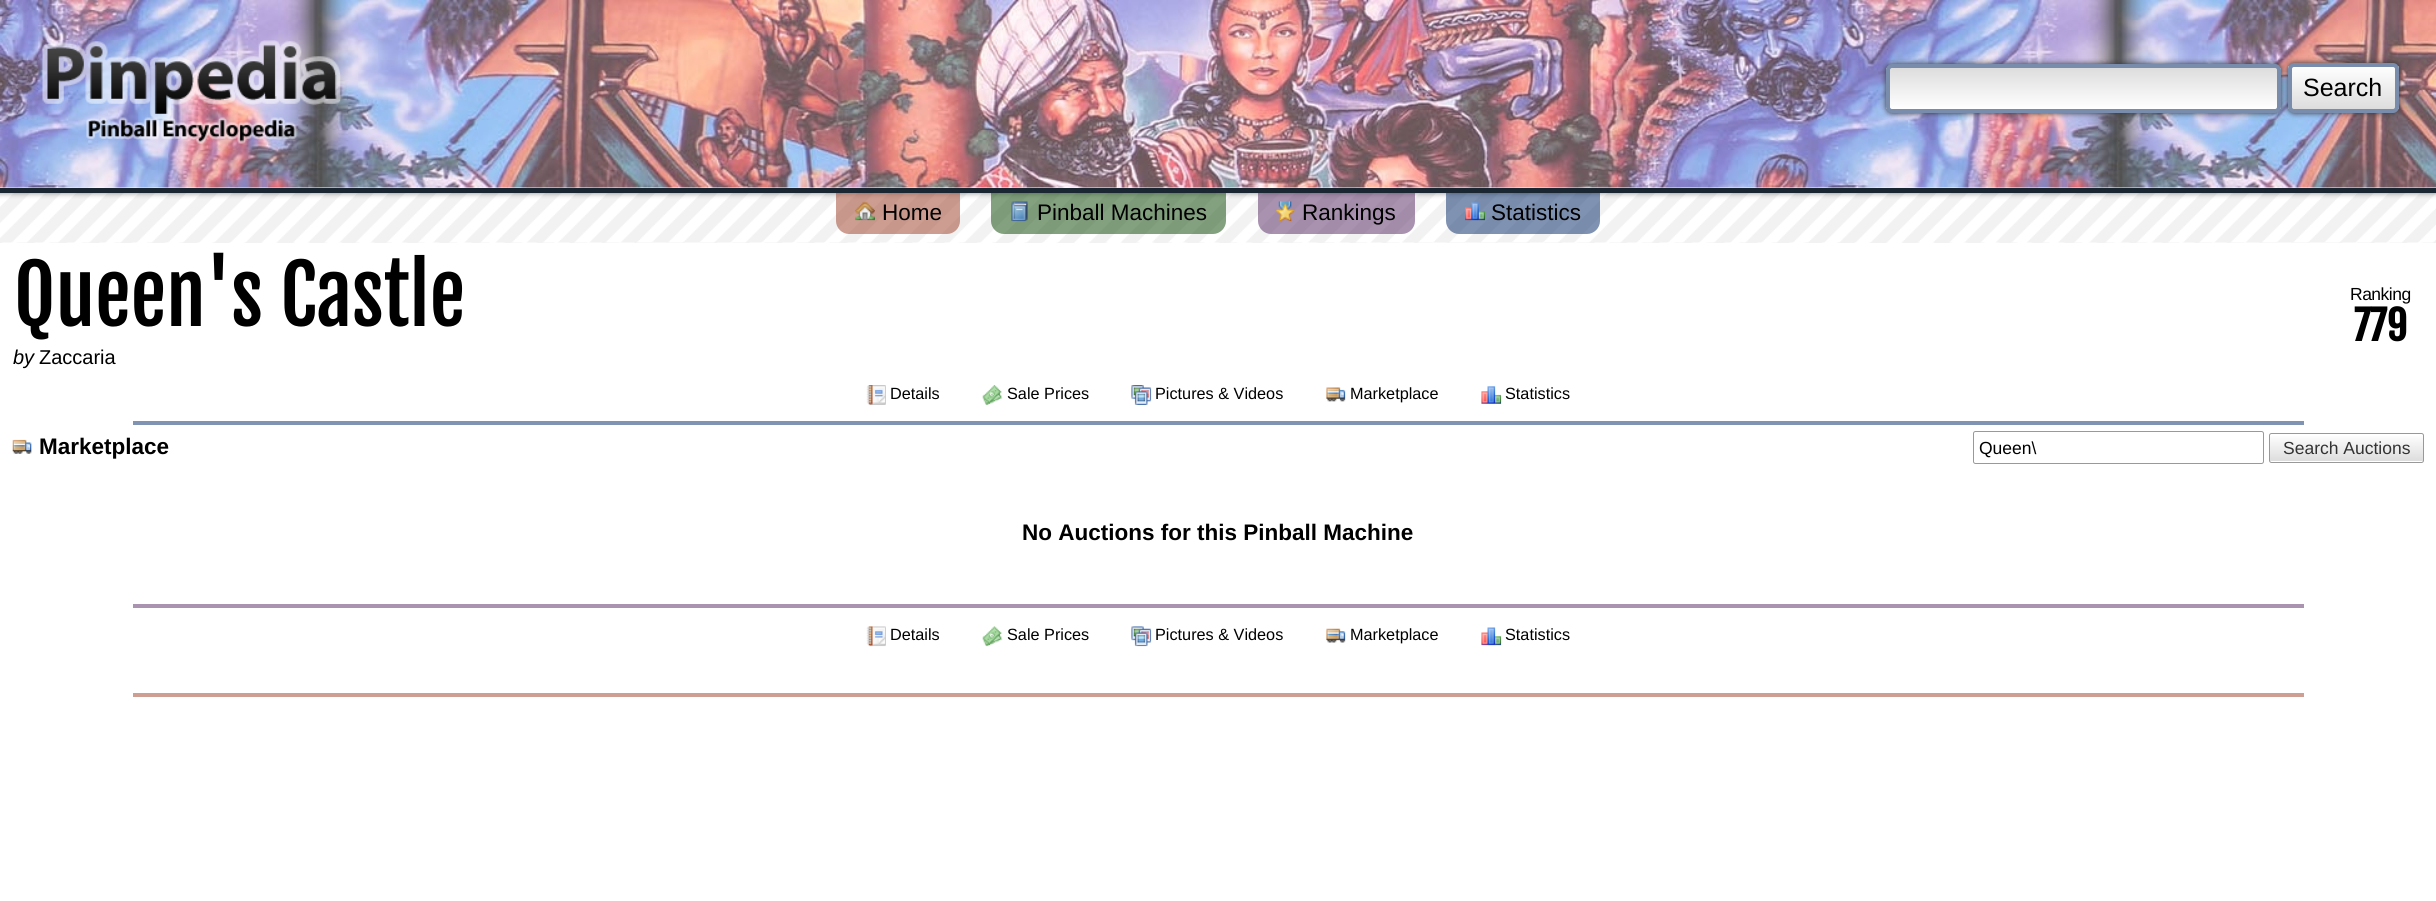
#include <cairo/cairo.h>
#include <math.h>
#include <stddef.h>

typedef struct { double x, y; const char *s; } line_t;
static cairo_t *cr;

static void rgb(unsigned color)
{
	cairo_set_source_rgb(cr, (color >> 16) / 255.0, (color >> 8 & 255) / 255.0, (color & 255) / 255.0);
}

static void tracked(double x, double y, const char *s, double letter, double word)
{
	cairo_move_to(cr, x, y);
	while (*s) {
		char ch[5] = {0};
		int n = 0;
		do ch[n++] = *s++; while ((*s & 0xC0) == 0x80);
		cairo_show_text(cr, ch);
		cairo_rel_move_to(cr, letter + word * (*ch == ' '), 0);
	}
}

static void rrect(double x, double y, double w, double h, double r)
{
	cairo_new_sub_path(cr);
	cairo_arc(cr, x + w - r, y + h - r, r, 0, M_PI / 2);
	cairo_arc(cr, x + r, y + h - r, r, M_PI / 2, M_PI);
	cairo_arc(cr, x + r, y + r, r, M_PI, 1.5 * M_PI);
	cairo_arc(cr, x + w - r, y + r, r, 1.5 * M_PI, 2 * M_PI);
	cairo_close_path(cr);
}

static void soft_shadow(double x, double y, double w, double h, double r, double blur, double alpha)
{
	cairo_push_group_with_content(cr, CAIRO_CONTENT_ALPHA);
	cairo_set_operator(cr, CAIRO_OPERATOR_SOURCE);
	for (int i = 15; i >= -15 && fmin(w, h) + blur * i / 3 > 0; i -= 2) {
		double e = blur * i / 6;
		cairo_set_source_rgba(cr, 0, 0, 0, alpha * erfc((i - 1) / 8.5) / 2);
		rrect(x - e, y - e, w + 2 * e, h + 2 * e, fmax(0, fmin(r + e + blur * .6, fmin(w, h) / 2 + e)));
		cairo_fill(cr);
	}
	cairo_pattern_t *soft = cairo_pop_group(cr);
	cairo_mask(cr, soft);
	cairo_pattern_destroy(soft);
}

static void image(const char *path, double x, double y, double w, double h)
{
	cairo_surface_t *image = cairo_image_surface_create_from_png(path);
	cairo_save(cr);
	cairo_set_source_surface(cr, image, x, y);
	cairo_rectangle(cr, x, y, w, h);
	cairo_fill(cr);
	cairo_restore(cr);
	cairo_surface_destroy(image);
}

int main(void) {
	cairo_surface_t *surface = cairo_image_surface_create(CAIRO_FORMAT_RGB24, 2436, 901);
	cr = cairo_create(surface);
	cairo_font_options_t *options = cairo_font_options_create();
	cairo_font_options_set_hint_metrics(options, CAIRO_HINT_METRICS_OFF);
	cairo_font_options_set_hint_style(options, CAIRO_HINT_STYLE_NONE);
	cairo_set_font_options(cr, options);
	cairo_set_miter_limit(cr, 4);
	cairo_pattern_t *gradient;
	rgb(0xffffff);
	cairo_paint(cr);
	image("img/1.png", 0, 187, 2436, 56);
	image("img/2.png", 0, 0, 2436, 188);
	image("img/3.png", 42, 40, 300, 104);
	rgb(0x333333);
	soft_shadow(1886, 64, 395, 49, 6, 3, 1);
	cairo_save(cr);
	rrect(1886, 64, 395, 49, 6);
	cairo_clip(cr);
	gradient = cairo_pattern_create_linear(1890, 68, 1890, 109);
	cairo_pattern_add_color_stop_rgba(gradient, 0, 0.867, 0.867, 0.867, 1);
	cairo_pattern_add_color_stop_rgba(gradient, 1, 1, 1, 1, 1);
	cairo_set_source(cr, gradient);
	cairo_pattern_destroy(gradient);
	cairo_rectangle(cr, 1886, 68, 395, 41);
	cairo_fill(cr);
	cairo_restore(cr);
	rrect(1888, 66, 391, 45, 4);
	rgb(0x798cab);
	cairo_set_line_width(cr, 4);
	cairo_stroke(cr);
	rgb(0x333333);
	soft_shadow(2288, 63, 111, 50, 6, 3, 1);
	cairo_save(cr);
	rrect(2288, 63, 111, 50, 6);
	cairo_clip(cr);
	gradient = cairo_pattern_create_linear(2291, 66, 2291, 109);
	cairo_pattern_add_color_stop_rgba(gradient, 0, 1, 1, 1, 1);
	cairo_pattern_add_color_stop_rgba(gradient, 1, 0.867, 0.867, 0.867, 1);
	cairo_set_source(cr, gradient);
	cairo_pattern_destroy(gradient);
	cairo_rectangle(cr, 2288, 66, 111, 43);
	cairo_fill(cr);
	cairo_restore(cr);
	rrect(2290, 65, 107, 46, 4);
	rgb(0x798cab);
	cairo_stroke(cr);
	image("img/4.png", 0, 193, 2436, 50);
	rgb(0x1a2732);
	cairo_rectangle(cr, 0, 188, 2436, 5);
	cairo_fill(cr);
	cairo_set_source_rgba(cr, 0.612, 0.235, 0.145, 0.5);
	cairo_new_path(cr);
	cairo_move_to(cr, 836, 193);
	cairo_line_to(cr, 960, 193);
	cairo_line_to(cr, 960, 221);
	cairo_curve_to(cr, 960, 228, 954, 234, 947, 234);
	cairo_line_to(cr, 849, 234);
	cairo_curve_to(cr, 842, 234, 836, 228, 836, 221);
	cairo_close_path(cr);
	cairo_fill(cr);
	image("img/5.png", 855, 201, 20, 20);
	cairo_set_source_rgba(cr, 0.035, 0.259, 0, 0.5);
	cairo_new_path(cr);
	cairo_move_to(cr, 991, 193);
	cairo_line_to(cr, 1226, 193);
	cairo_line_to(cr, 1226, 221);
	cairo_curve_to(cr, 1226, 228, 1220, 234, 1213, 234);
	cairo_line_to(cr, 1004, 234);
	cairo_curve_to(cr, 997, 234, 991, 228, 991, 221);
	cairo_close_path(cr);
	cairo_fill(cr);
	image("img/6.png", 1011, 201, 17, 21);
	cairo_set_source_rgba(cr, 0.333, 0.153, 0.38, 0.5);
	cairo_new_path(cr);
	cairo_move_to(cr, 1258, 193);
	cairo_line_to(cr, 1415, 193);
	cairo_line_to(cr, 1415, 221);
	cairo_curve_to(cr, 1415, 228, 1409, 234, 1402, 234);
	cairo_line_to(cr, 1271, 234);
	cairo_curve_to(cr, 1264, 234, 1258, 228, 1258, 221);
	cairo_close_path(cr);
	cairo_fill(cr);
	image("img/7.png", 1276, 201, 20, 21);
	cairo_set_source_rgba(cr, 0, 0.149, 0.392, 0.5);
	cairo_new_path(cr);
	cairo_move_to(cr, 1446, 193);
	cairo_line_to(cr, 1600, 193);
	cairo_line_to(cr, 1600, 221);
	cairo_curve_to(cr, 1600, 228, 1594, 234, 1587, 234);
	cairo_line_to(cr, 1459, 234);
	cairo_curve_to(cr, 1452, 234, 1446, 228, 1446, 221);
	cairo_close_path(cr);
	cairo_fill(cr);
	image("img/8.png", 1465, 202, 20, 19);
	image("img/9.png", 866, 385, 20, 20);
	image("img/10.png", 982, 385, 21, 20);
	image("img/11.png", 1131, 385, 21, 20);
	image("img/12.png", 1326, 387, 20, 15);
	image("img/13.png", 1481, 386, 21, 18);
	rgb(0x8093b2);
	cairo_rectangle(cr, 133, 421, 2171, 4);
	cairo_fill(cr);
	image("img/14.png", 12, 439, 20, 15);
	rrect(1973.5, 431.5, 290, 32, 2);
	rgb(0x999999);
	cairo_set_line_width(cr, 1);
	cairo_stroke(cr);
	gradient = cairo_pattern_create_linear(2270, 434, 2270, 461);
	cairo_pattern_add_color_stop_rgba(gradient, 0, 1, 1, 1, 1);
	cairo_pattern_add_color_stop_rgba(gradient, 1, 0.867, 0.867, 0.867, 1);
	cairo_set_source(cr, gradient);
	cairo_pattern_destroy(gradient);
	cairo_rectangle(cr, 2269, 436, 155, 25);
	cairo_fill(cr);
	rrect(2269.5, 433.5, 154, 29, 2);
	rgb(0x999999);
	cairo_stroke(cr);
	rgb(0xaa93b0);
	cairo_rectangle(cr, 133, 604, 2171, 4);
	cairo_fill(cr);
	image("img/15.png", 866, 626, 20, 21);
	image("img/16.png", 982, 626, 21, 21);
	image("img/17.png", 1131, 626, 21, 21);
	image("img/18.png", 1326, 628, 20, 15);
	image("img/19.png", 1481, 627, 21, 19);
	rgb(0xce9e92);
	cairo_rectangle(cr, 133, 693, 2171, 4);
	cairo_fill(cr);
	cairo_select_font_face(cr, "Liberation Sans", CAIRO_FONT_SLANT_NORMAL, CAIRO_FONT_WEIGHT_NORMAL);
	cairo_set_font_size(cr, 25);
	rgb(0x000000);
	cairo_move_to(cr, 2303, 96);
	cairo_show_text(cr, "Search");
	cairo_set_font_size(cr, 22.5);
	{
		static const line_t items[] = {
			{882, 220, "Home"},
			{1037, 220, "Pinball Machines"},
			{1302, 220, "Rankings"},
			{1491, 220, "Statistics"},
		};
		for (size_t i = 0; i < sizeof items / sizeof *items; i++) {
			cairo_move_to(cr, items[i].x, items[i].y);
			cairo_show_text(cr, items[i].s);
		}
	}
	cairo_select_font_face(cr, "Fjalla One", CAIRO_FONT_SLANT_NORMAL, CAIRO_FONT_WEIGHT_NORMAL);
	cairo_set_font_size(cr, 80);
	cairo_move_to(cr, 14, 326);
	cairo_show_text(cr, "Queen's Castle");
	cairo_select_font_face(cr, "Liberation Sans", CAIRO_FONT_SLANT_ITALIC, CAIRO_FONT_WEIGHT_NORMAL);
	cairo_set_font_size(cr, 20);
	cairo_move_to(cr, 13, 364);
	cairo_show_text(cr, "by");
	cairo_select_font_face(cr, "Liberation Sans", CAIRO_FONT_SLANT_NORMAL, CAIRO_FONT_WEIGHT_NORMAL);
	cairo_move_to(cr, 39, 364);
	cairo_show_text(cr, "Zaccaria");
	cairo_set_font_size(cr, 17.5);
	tracked(2350, 300, "Ranking", -0.5, 0);
	cairo_select_font_face(cr, "Fjalla One", CAIRO_FONT_SLANT_NORMAL, CAIRO_FONT_WEIGHT_BOLD);
	cairo_set_font_size(cr, 40);
	cairo_move_to(cr, 2354, 341);
	cairo_show_text(cr, "779");
	cairo_select_font_face(cr, "Liberation Sans", CAIRO_FONT_SLANT_NORMAL, CAIRO_FONT_WEIGHT_NORMAL);
	cairo_set_font_size(cr, 16.25);
	{
		static const line_t items[] = {
			{890, 399, "Details"},
			{1007, 399, "Sale Prices"},
			{1155, 399, "Pictures & Videos"},
			{1350, 399, "Marketplace"},
			{1505, 399, "Statistics"},
		};
		for (size_t i = 0; i < sizeof items / sizeof *items; i++) {
			cairo_move_to(cr, items[i].x, items[i].y);
			cairo_show_text(cr, items[i].s);
		}
	}
	cairo_select_font_face(cr, "Liberation Sans", CAIRO_FONT_SLANT_NORMAL, CAIRO_FONT_WEIGHT_BOLD);
	cairo_set_font_size(cr, 22.5);
	cairo_move_to(cr, 39, 454);
	cairo_show_text(cr, "Marketplace");
	cairo_select_font_face(cr, "Liberation Sans", CAIRO_FONT_SLANT_NORMAL, CAIRO_FONT_WEIGHT_NORMAL);
	cairo_set_font_size(cr, 17.5);
	cairo_move_to(cr, 1979, 454);
	cairo_show_text(cr, "Queen\\");
	rgb(0x333333);
	cairo_move_to(cr, 2283, 454);
	cairo_show_text(cr, "Search Auctions");
	cairo_select_font_face(cr, "Liberation Sans", CAIRO_FONT_SLANT_NORMAL, CAIRO_FONT_WEIGHT_BOLD);
	cairo_set_font_size(cr, 22.5);
	rgb(0x000000);
	cairo_move_to(cr, 1022, 540);
	cairo_show_text(cr, "No Auctions for this Pinball Machine");
	cairo_select_font_face(cr, "Liberation Sans", CAIRO_FONT_SLANT_NORMAL, CAIRO_FONT_WEIGHT_NORMAL);
	cairo_set_font_size(cr, 16.25);
	{
		static const line_t items[] = {
			{890, 640, "Details"},
			{1007, 640, "Sale Prices"},
			{1155, 640, "Pictures & Videos"},
			{1350, 640, "Marketplace"},
			{1505, 640, "Statistics"},
		};
		for (size_t i = 0; i < sizeof items / sizeof *items; i++) {
			cairo_move_to(cr, items[i].x, items[i].y);
			cairo_show_text(cr, items[i].s);
		}
	}
	cairo_surface_write_to_png(surface, "page.png");
	cairo_font_options_destroy(options);
	cairo_destroy(cr);
	cairo_surface_destroy(surface);
	return 0;
}
